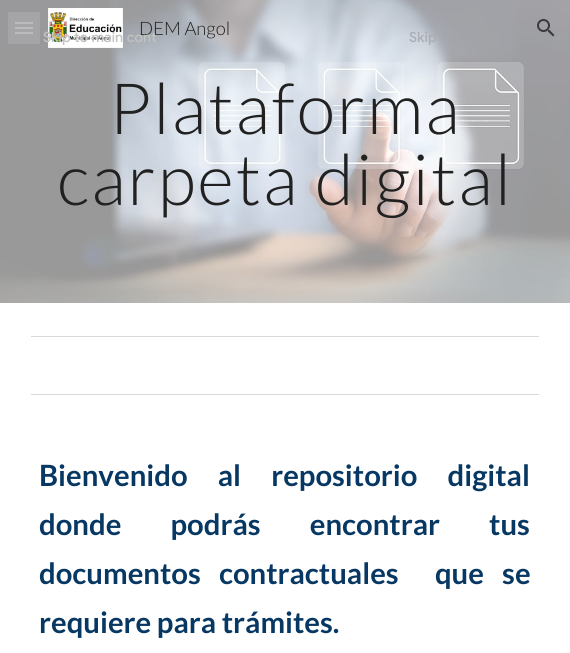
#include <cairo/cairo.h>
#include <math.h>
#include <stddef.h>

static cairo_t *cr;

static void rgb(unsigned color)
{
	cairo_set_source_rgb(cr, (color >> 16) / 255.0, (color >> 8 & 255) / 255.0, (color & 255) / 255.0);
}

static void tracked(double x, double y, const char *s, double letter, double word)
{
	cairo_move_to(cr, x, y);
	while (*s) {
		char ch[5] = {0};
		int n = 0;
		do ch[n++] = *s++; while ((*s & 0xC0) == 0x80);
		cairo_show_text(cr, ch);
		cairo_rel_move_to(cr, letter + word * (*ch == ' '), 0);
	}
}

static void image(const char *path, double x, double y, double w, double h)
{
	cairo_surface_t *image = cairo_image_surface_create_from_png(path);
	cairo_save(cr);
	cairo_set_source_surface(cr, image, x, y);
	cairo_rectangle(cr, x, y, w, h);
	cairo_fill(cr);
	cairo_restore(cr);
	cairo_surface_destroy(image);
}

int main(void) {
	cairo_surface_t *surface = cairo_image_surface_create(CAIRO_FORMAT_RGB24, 570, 653);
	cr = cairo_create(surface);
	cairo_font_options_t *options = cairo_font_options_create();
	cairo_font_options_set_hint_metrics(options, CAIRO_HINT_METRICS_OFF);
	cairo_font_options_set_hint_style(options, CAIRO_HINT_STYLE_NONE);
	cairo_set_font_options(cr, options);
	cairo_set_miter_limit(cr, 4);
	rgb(0xffffff);
	cairo_paint(cr);
	image("img/3.png", 0, 0, 570, 303);
	rgb(0xb2b2b2);
	cairo_rectangle(cr, 15, 22, 18, 2);
	cairo_fill(cr);
	cairo_rectangle(cr, 15, 27, 18, 2);
	cairo_fill(cr);
	cairo_rectangle(cr, 15, 32, 18, 2);
	cairo_fill(cr);
	cairo_set_source_rgba(cr, 1, 1, 1, 0.12);
	cairo_rectangle(cr, 8, 12, 32, 32);
	cairo_fill(cr);
	image("img/1.png", 48, 8, 75, 40);
	image("img/2.png", 537, 19, 18, 18);
	rgb(0xd9d9d9);
	cairo_rectangle(cr, 31, 336, 508, 1);
	cairo_fill(cr);
	cairo_rectangle(cr, 31, 394, 508, 1);
	cairo_fill(cr);
	cairo_select_font_face(cr, "Lato Light", CAIRO_FONT_SLANT_NORMAL, CAIRO_FONT_WEIGHT_NORMAL);
	cairo_set_font_size(cr, 18.5);
	rgb(0x212121);
	cairo_move_to(cr, 139, 35);
	cairo_show_text(cr, "DEM Angol");
	cairo_set_font_size(cr, 70.75);
	tracked(109, 134, "Plataforma", 2, 0);
	tracked(57, 205, "carpeta digital", 2, 0);
	cairo_select_font_face(cr, "Lato", CAIRO_FONT_SLANT_NORMAL, CAIRO_FONT_WEIGHT_BOLD);
	cairo_set_font_size(cr, 29.3);
	rgb(0x073763);
	tracked(39, 486, "Bienvenido al repositorio digital", 0, 24.5);
	tracked(39, 535, "donde podrás encontrar tus", 0, 43.5);
	tracked(39, 584, "documentos contractuales  que se", 0, 12.5);
	cairo_move_to(cr, 39, 633);
	cairo_show_text(cr, "requiere para trámites.");
	cairo_select_font_face(cr, "Google Sans Medium", CAIRO_FONT_SLANT_NORMAL, CAIRO_FONT_WEIGHT_NORMAL);
	cairo_set_font_size(cr, 14);
	rgb(0xc1c3c0);
	tracked(43, 42, "Skip to main cont", 0.1, 0);
	rgb(0xabaeb4);
	tracked(409, 42, "Skip", 0.1, 0);
	cairo_surface_write_to_png(surface, "page.png");
	cairo_font_options_destroy(options);
	cairo_destroy(cr);
	cairo_surface_destroy(surface);
	return 0;
}
